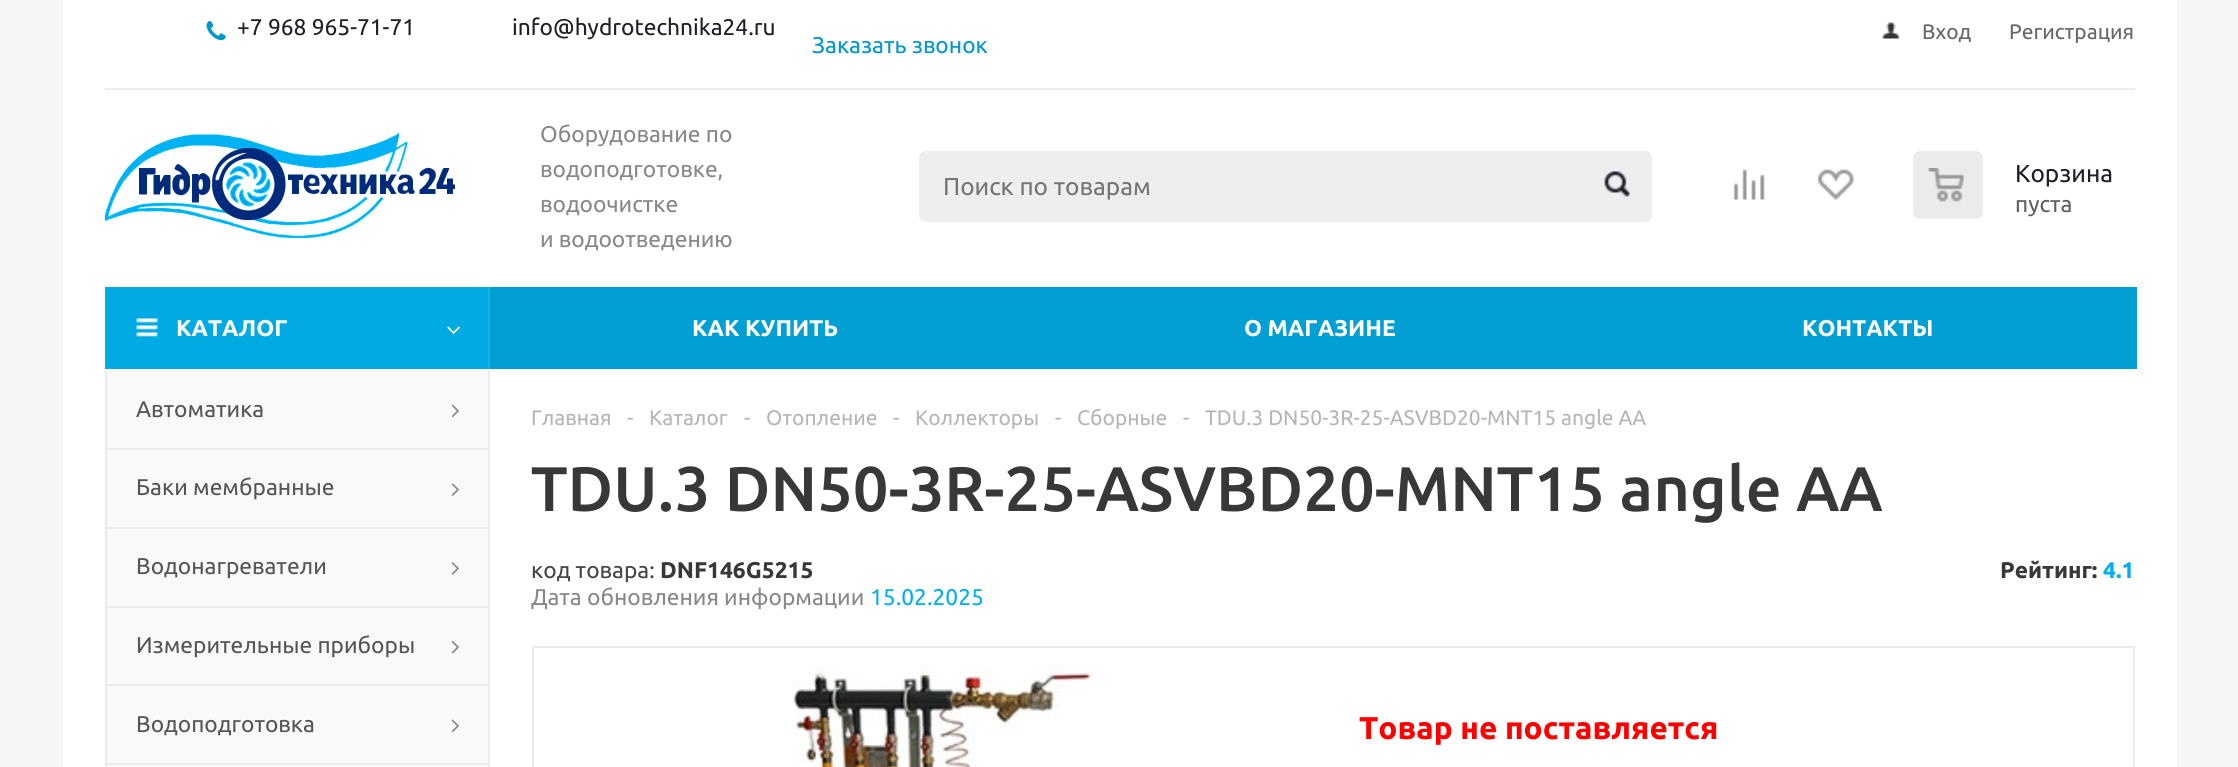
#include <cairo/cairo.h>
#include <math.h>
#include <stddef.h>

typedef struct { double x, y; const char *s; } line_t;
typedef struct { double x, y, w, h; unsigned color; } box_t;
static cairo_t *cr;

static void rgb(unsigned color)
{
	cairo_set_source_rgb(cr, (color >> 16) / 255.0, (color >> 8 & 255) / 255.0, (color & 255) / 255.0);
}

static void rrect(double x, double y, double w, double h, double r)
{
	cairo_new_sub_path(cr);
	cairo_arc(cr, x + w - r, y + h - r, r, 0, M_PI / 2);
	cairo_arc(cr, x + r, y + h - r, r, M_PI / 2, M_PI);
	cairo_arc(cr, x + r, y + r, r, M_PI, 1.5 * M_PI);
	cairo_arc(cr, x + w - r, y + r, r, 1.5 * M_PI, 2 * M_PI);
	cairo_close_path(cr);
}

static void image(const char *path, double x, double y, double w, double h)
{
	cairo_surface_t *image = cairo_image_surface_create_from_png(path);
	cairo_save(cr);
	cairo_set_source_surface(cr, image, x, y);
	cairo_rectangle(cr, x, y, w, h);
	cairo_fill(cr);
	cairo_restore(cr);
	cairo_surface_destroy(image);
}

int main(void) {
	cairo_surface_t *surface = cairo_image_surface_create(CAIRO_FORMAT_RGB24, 2238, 767);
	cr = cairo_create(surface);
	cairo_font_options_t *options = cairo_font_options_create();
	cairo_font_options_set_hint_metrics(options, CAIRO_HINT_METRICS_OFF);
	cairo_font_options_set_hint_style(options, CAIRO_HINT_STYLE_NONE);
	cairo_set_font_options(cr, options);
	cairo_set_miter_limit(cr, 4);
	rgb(0xf6f6f7);
	cairo_paint(cr);
	rgb(0xffffff);
	cairo_rectangle(cr, 63, 0, 2114, 767);
	cairo_fill(cr);
	image("img/1.png", 206, 21, 20, 20);
	image("img/2.png", 1882, 22, 18, 17);
	rgb(0xeaebec);
	cairo_rectangle(cr, 105, 88, 2030, 2);
	cairo_fill(cr);
	image("img/3.png", 105, 133, 350, 105);
	rgb(0xeeeeee);
	rrect(919, 151, 733, 71, 7);
	cairo_fill(cr);
	image("img/4.png", 1604, 171, 26, 26);
	image("img/5.png", 1733, 169, 32, 31);
	image("img/6.png", 1818, 169, 36, 31);
	rgb(0xeaebec);
	rrect(1913, 151, 70, 68, 7);
	cairo_fill(cr);
	image("img/7.png", 1928, 168, 36, 34);
	rgb(0x019fd4);
	cairo_rectangle(cr, 490, 287, 1647, 82);
	cairo_fill(cr);
	rgb(0x01aae3);
	cairo_rectangle(cr, 105, 287, 383, 82);
	cairo_fill(cr);
	image("img/8.png", 136, 318, 22, 19);
	rgb(0x1ab3e6);
	cairo_rectangle(cr, 488, 287, 2, 82);
	cairo_fill(cr);
	image("img/9.png", 447, 326, 13, 8);
	{
		static const box_t items[] = {
			{107, 371, 381, 77, 0xf9f9f9},
			{488, 371, 2, 77, 0xeaebec},
			{105, 371, 2, 77, 0xeaebec},
		};
		for (size_t i = 0; i < sizeof items / sizeof *items; i++) {
			rgb(items[i].color);
			cairo_rectangle(cr, items[i].x, items[i].y, items[i].w, items[i].h);
			cairo_fill(cr);
		}
	}
	image("img/10.png", 451, 404, 8, 14);
	{
		static const box_t items[] = {
			{107, 450, 381, 77, 0xf9f9f9},
			{105, 448, 385, 2, 0xeaebec},
			{488, 448, 2, 79, 0xeaebec},
			{105, 448, 2, 79, 0xeaebec},
		};
		for (size_t i = 0; i < sizeof items / sizeof *items; i++) {
			rgb(items[i].color);
			cairo_rectangle(cr, items[i].x, items[i].y, items[i].w, items[i].h);
			cairo_fill(cr);
		}
	}
	image("img/11.png", 451, 483, 8, 13);
	{
		static const box_t items[] = {
			{107, 529, 381, 77, 0xf9f9f9},
			{105, 527, 385, 2, 0xeaebec},
			{488, 527, 2, 79, 0xeaebec},
			{105, 527, 2, 79, 0xeaebec},
		};
		for (size_t i = 0; i < sizeof items / sizeof *items; i++) {
			rgb(items[i].color);
			cairo_rectangle(cr, items[i].x, items[i].y, items[i].w, items[i].h);
			cairo_fill(cr);
		}
	}
	image("img/12.png", 451, 562, 8, 13);
	{
		static const box_t items[] = {
			{107, 608, 381, 76, 0xf9f9f9},
			{105, 606, 385, 2, 0xeaebec},
			{488, 606, 2, 78, 0xeaebec},
			{105, 606, 2, 78, 0xeaebec},
		};
		for (size_t i = 0; i < sizeof items / sizeof *items; i++) {
			rgb(items[i].color);
			cairo_rectangle(cr, items[i].x, items[i].y, items[i].w, items[i].h);
			cairo_fill(cr);
		}
	}
	image("img/13.png", 451, 640, 8, 14);
	{
		static const box_t items[] = {
			{107, 686, 381, 77, 0xf9f9f9},
			{105, 684, 385, 2, 0xeaebec},
			{488, 684, 2, 79, 0xeaebec},
			{105, 684, 2, 79, 0xeaebec},
		};
		for (size_t i = 0; i < sizeof items / sizeof *items; i++) {
			rgb(items[i].color);
			cairo_rectangle(cr, items[i].x, items[i].y, items[i].w, items[i].h);
			cairo_fill(cr);
		}
	}
	image("img/10.png", 451, 719, 8, 14);
	{
		static const box_t items[] = {
			{107, 765, 381, 2, 0xf9f9f9},
			{105, 763, 385, 2, 0xeaebec},
			{488, 763, 2, 4, 0xeaebec},
			{105, 763, 2, 4, 0xeaebec},
		};
		for (size_t i = 0; i < sizeof items / sizeof *items; i++) {
			rgb(items[i].color);
			cairo_rectangle(cr, items[i].x, items[i].y, items[i].w, items[i].h);
			cairo_fill(cr);
		}
	}
	cairo_rectangle(cr, 533, 647, 1601, 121);
	rgb(0xeaeaea);
	cairo_stroke(cr);
	image("img/14.png", 794, 665, 301, 102);
	cairo_select_font_face(cr, "Ubuntu", CAIRO_FONT_SLANT_NORMAL, CAIRO_FONT_WEIGHT_NORMAL);
	cairo_set_font_size(cr, 22.75);
	rgb(0x1d2029);
	cairo_move_to(cr, 237, 35);
	cairo_show_text(cr, "+7 968 965-71-71");
	cairo_move_to(cr, 512, 35);
	cairo_show_text(cr, "info@hydrotechnika24.ru");
	rgb(0x0097cb);
	cairo_move_to(cr, 812, 53);
	cairo_show_text(cr, "Заказать звонок");
	cairo_set_font_size(cr, 21);
	rgb(0x666666);
	cairo_move_to(cr, 1922, 39);
	cairo_show_text(cr, "Вход");
	cairo_move_to(cr, 2009, 39);
	cairo_show_text(cr, "Регистрация");
	cairo_set_font_size(cr, 22.75);
	rgb(0x888888);
	{
		static const line_t items[] = {
			{540, 142, "Оборудование по"},
			{540, 177, "водоподготовке,"},
			{540, 212, "водоочистке"},
			{540, 247, "и водоотведению"},
		};
		for (size_t i = 0; i < sizeof items / sizeof *items; i++) {
			cairo_move_to(cr, items[i].x, items[i].y);
			cairo_show_text(cr, items[i].s);
		}
	}
	cairo_set_font_size(cr, 24.5);
	rgb(0x757575);
	cairo_move_to(cr, 943, 195);
	cairo_show_text(cr, "Поиск по товарам");
	rgb(0x1d2029);
	cairo_move_to(cr, 2015, 182);
	cairo_show_text(cr, "Корзина");
	cairo_set_font_size(cr, 22.75);
	rgb(0x5f5f5f);
	cairo_move_to(cr, 2015, 212);
	cairo_show_text(cr, "пуста");
	cairo_select_font_face(cr, "Ubuntu", CAIRO_FONT_SLANT_NORMAL, CAIRO_FONT_WEIGHT_BOLD);
	rgb(0xffffff);
	{
		static const line_t items[] = {
			{176, 336, "КАТАЛОГ"},
			{692, 336, "КАК КУПИТЬ"},
			{1244, 336, "О МАГАЗИНЕ"},
			{1802, 336, "КОНТАКТЫ"},
		};
		for (size_t i = 0; i < sizeof items / sizeof *items; i++) {
			cairo_move_to(cr, items[i].x, items[i].y);
			cairo_show_text(cr, items[i].s);
		}
	}
	cairo_select_font_face(cr, "Ubuntu", CAIRO_FONT_SLANT_NORMAL, CAIRO_FONT_WEIGHT_NORMAL);
	rgb(0x555555);
	{
		static const line_t items[] = {
			{136, 417, "Автоматика"},
			{136, 495, "Баки мембранные"},
			{136, 574, "Водонагреватели"},
			{136, 653, "Измерительные приборы"},
			{136, 732, "Водоподготовка"},
		};
		for (size_t i = 0; i < sizeof items / sizeof *items; i++) {
			cairo_move_to(cr, items[i].x, items[i].y);
			cairo_show_text(cr, items[i].s);
		}
	}
	cairo_set_font_size(cr, 21);
	rgb(0xb6b5b5);
	{
		static const line_t items[] = {
			{531, 425, "Главная"},
			{627, 425, "-"},
			{649, 425, "Каталог"},
			{744, 425, "-"},
			{766, 425, "Отопление"},
			{893, 425, "-"},
			{915, 425, "Коллекторы"},
			{1055, 425, "-"},
			{1077, 425, "Сборные"},
			{1183, 425, "-"},
			{1205, 425, "TDU.3 DN50-3R-25-ASVBD20-MNT15 angle AA"},
		};
		for (size_t i = 0; i < sizeof items / sizeof *items; i++) {
			cairo_move_to(cr, items[i].x, items[i].y);
			cairo_show_text(cr, items[i].s);
		}
	}
	cairo_select_font_face(cr, "Ubuntu Medium", CAIRO_FONT_SLANT_NORMAL, CAIRO_FONT_WEIGHT_NORMAL);
	cairo_set_font_size(cr, 63);
	rgb(0x383838);
	cairo_move_to(cr, 531, 511);
	cairo_show_text(cr, "TDU.3 DN50-3R-25-ASVBD20-MNT15 angle AA");
	cairo_select_font_face(cr, "Ubuntu", CAIRO_FONT_SLANT_NORMAL, CAIRO_FONT_WEIGHT_NORMAL);
	cairo_set_font_size(cr, 22.75);
	rgb(0x454545);
	cairo_move_to(cr, 531, 578);
	cairo_show_text(cr, "код товара:");
	cairo_select_font_face(cr, "Ubuntu", CAIRO_FONT_SLANT_NORMAL, CAIRO_FONT_WEIGHT_BOLD);
	rgb(0x383838);
	cairo_move_to(cr, 660, 578);
	cairo_show_text(cr, "DNF146G5215");
	cairo_select_font_face(cr, "Ubuntu", CAIRO_FONT_SLANT_NORMAL, CAIRO_FONT_WEIGHT_NORMAL);
	rgb(0x888888);
	cairo_move_to(cr, 531, 605);
	cairo_show_text(cr, "Дата обновления информации");
	rgb(0x00afee);
	cairo_move_to(cr, 870, 605);
	cairo_show_text(cr, "15.02.2025");
	cairo_select_font_face(cr, "Ubuntu", CAIRO_FONT_SLANT_NORMAL, CAIRO_FONT_WEIGHT_BOLD);
	rgb(0x383838);
	cairo_move_to(cr, 2000, 578);
	cairo_show_text(cr, "Рейтинг:");
	rgb(0x00afee);
	cairo_move_to(cr, 2103, 578);
	cairo_show_text(cr, "4.1");
	cairo_set_font_size(cr, 31.5);
	rgb(0xff0000);
	cairo_move_to(cr, 1359, 739);
	cairo_show_text(cr, "Товар не поставляется");
	cairo_surface_write_to_png(surface, "page.png");
	cairo_font_options_destroy(options);
	cairo_destroy(cr);
	cairo_surface_destroy(surface);
	return 0;
}
